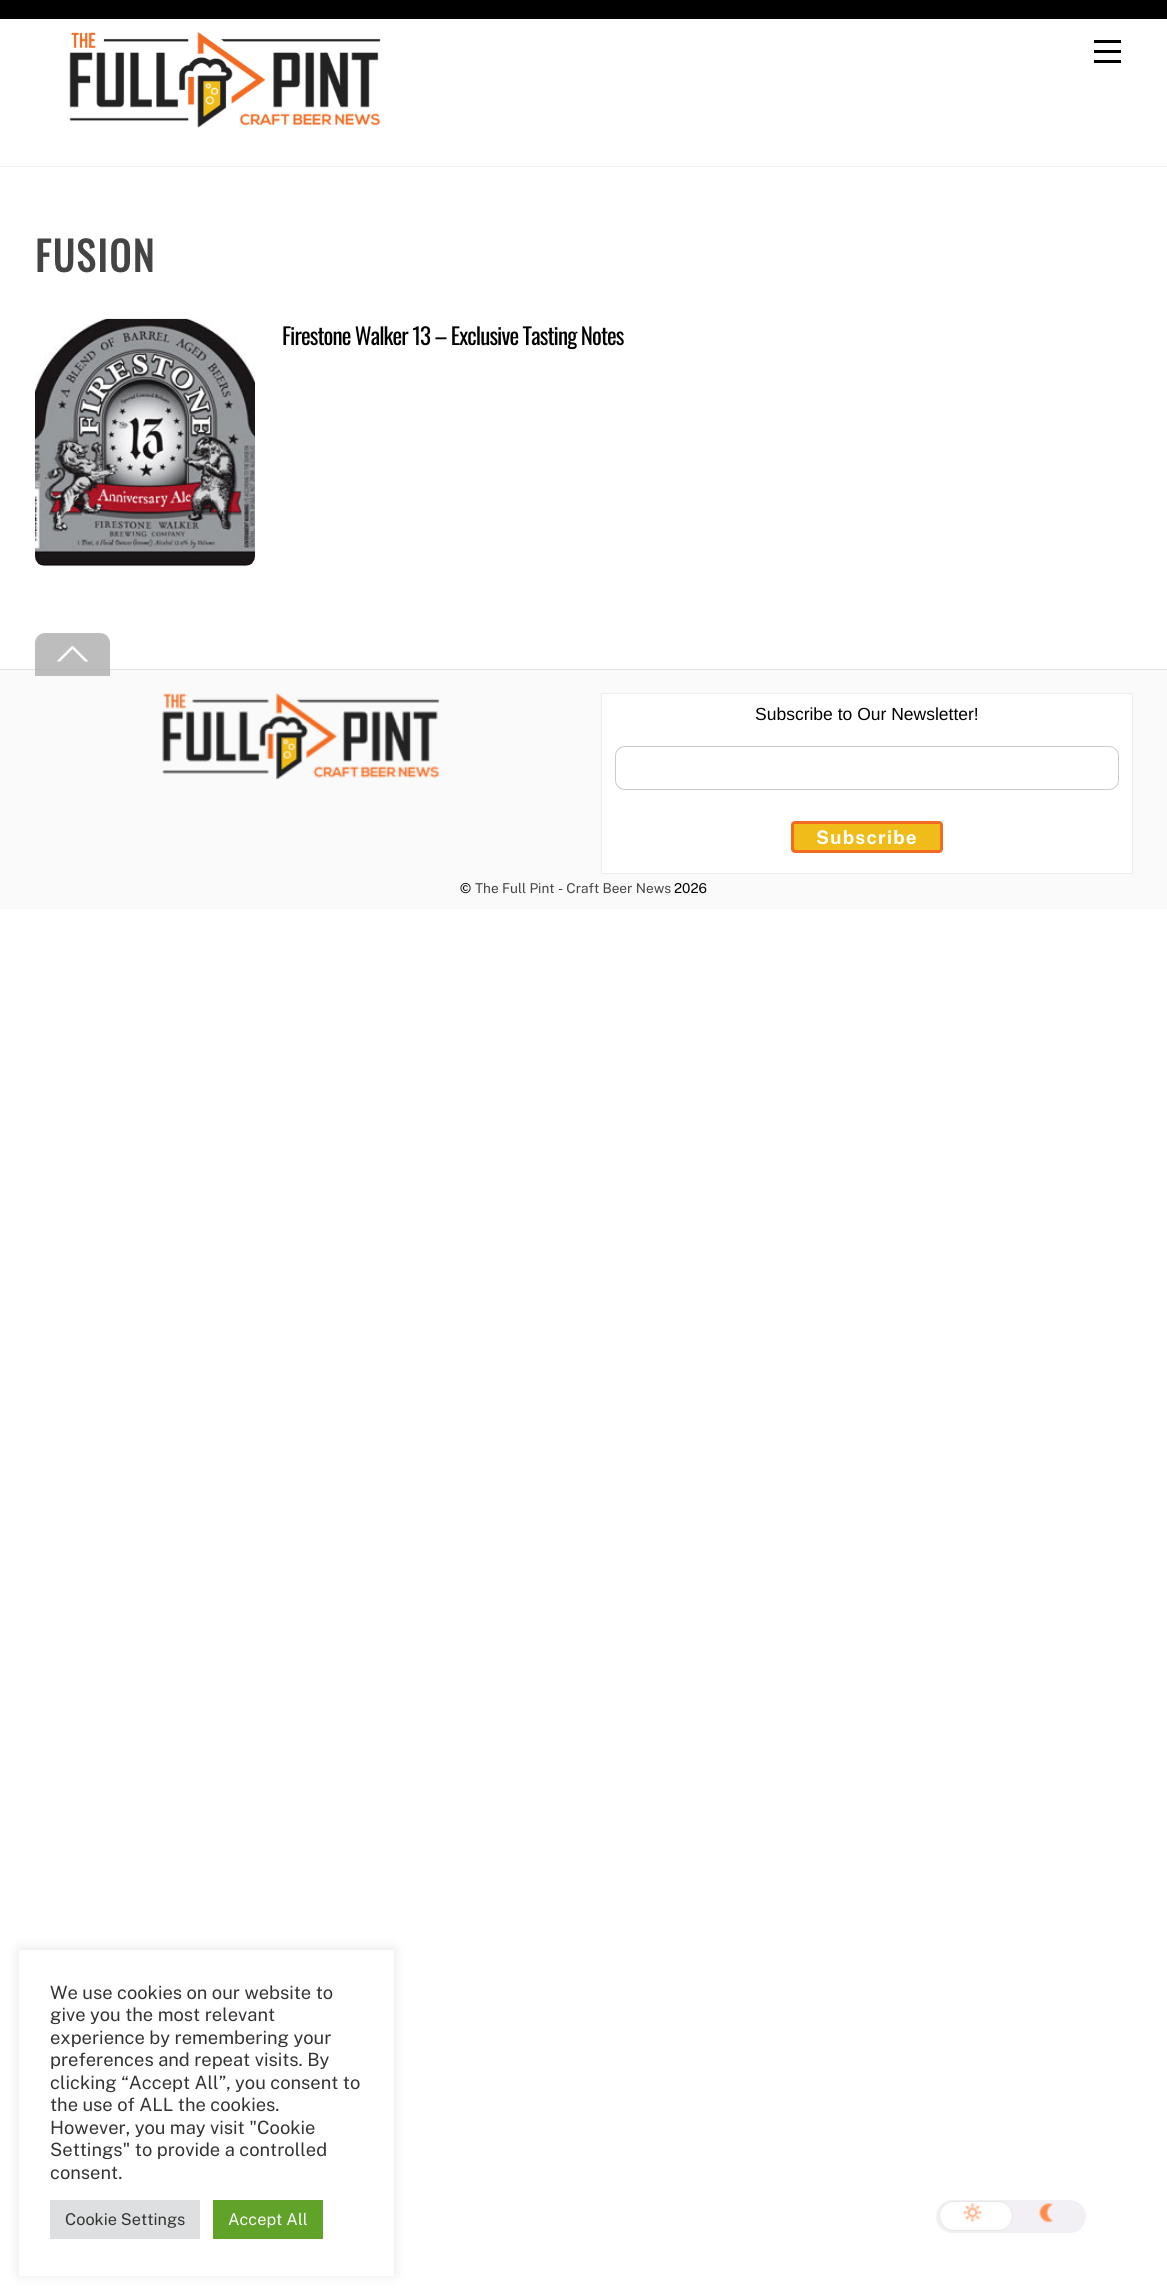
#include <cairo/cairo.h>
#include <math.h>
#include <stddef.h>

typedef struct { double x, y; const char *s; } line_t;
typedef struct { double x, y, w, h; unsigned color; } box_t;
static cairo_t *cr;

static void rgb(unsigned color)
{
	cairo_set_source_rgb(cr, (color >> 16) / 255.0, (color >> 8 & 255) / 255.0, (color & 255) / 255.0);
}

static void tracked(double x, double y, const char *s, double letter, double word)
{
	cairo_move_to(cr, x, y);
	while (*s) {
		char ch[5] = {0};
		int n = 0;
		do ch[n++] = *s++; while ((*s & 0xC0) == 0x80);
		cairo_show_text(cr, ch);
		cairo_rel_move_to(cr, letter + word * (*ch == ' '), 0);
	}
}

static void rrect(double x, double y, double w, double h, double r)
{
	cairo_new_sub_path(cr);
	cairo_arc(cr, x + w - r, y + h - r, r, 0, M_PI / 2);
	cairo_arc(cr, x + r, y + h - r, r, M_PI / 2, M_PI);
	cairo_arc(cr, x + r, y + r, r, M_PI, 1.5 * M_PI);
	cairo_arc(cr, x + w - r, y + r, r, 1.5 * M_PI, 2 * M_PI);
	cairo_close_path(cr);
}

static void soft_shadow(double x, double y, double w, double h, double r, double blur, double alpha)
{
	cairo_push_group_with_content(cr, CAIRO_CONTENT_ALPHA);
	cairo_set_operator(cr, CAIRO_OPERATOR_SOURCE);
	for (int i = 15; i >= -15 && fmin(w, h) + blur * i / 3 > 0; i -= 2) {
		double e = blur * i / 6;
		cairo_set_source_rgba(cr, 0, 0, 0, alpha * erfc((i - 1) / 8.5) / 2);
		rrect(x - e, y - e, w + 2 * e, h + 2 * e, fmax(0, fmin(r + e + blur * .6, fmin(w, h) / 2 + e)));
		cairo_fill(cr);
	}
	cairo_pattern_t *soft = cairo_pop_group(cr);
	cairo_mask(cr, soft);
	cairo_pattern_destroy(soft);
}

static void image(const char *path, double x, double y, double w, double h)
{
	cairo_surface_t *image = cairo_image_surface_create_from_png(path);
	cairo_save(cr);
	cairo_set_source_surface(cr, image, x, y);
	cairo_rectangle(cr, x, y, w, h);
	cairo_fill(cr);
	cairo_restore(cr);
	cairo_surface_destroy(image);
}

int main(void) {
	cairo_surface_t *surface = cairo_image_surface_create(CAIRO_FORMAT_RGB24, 1167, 2294);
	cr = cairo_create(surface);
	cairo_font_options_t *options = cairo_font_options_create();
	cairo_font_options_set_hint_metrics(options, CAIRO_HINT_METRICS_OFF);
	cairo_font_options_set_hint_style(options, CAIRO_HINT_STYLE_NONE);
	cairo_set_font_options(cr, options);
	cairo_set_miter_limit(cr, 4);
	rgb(0xffffff);
	cairo_paint(cr);
	rgb(0x000000);
	cairo_rectangle(cr, 0, 0, 1167, 19);
	cairo_fill(cr);
	rgb(0xf2f2f2);
	cairo_rectangle(cr, 0, 166, 1167, 1);
	cairo_fill(cr);
	image("img/1.png", 69, 32, 312, 96);
	{
		static const box_t items[] = {
			{1094, 60, 27, 3, 0x000000},
			{1094, 40, 27, 3, 0x000000},
			{1094, 50, 27, 3, 0x000000},
		};
		for (size_t i = 0; i < sizeof items / sizeof *items; i++) {
			rgb(items[i].color);
			cairo_rectangle(cr, items[i].x, items[i].y, items[i].w, items[i].h);
			cairo_fill(cr);
		}
	}
	image("img/2.png", 35, 318, 220, 249);
	rgb(0xfafafa);
	cairo_rectangle(cr, 0, 670, 1167, 239);
	cairo_fill(cr);
	rgb(0xe1e1e1);
	cairo_rectangle(cr, 0, 669, 1167, 1);
	cairo_fill(cr);
	cairo_set_source_rgba(cr, 0.671, 0.671, 0.671, 0.78);
	cairo_new_path(cr);
	cairo_move_to(cr, 45, 633);
	cairo_line_to(cr, 100, 633);
	cairo_curve_to(cr, 105.5, 633, 110, 637.5, 110, 643);
	cairo_line_to(cr, 110, 676);
	cairo_line_to(cr, 35, 676);
	cairo_line_to(cr, 35, 643);
	cairo_curve_to(cr, 35, 637.5, 39.5, 633, 45, 633);
	cairo_close_path(cr);
	cairo_fill(cr);
	rgb(0xffffff);
	cairo_new_path(cr);
	cairo_move_to(cr, 72.5, 645.5);
	cairo_line_to(cr, 88.5, 661.5);
	cairo_line_to(cr, 85, 661.5);
	cairo_line_to(cr, 72.5, 649);
	cairo_close_path(cr);
	cairo_fill(cr);
	cairo_new_path(cr);
	cairo_move_to(cr, 56.5, 661.5);
	cairo_line_to(cr, 72.5, 645.5);
	cairo_line_to(cr, 72.5, 649);
	cairo_line_to(cr, 60, 661.5);
	cairo_close_path(cr);
	cairo_fill(cr);
	image("img/3.png", 162, 692, 278, 87);
	cairo_rectangle(cr, 601.5, 693.5, 531, 180);
	cairo_fill_preserve(cr);
	rgb(0xededed);
	cairo_set_line_width(cr, 1);
	cairo_stroke(cr);
	rrect(615.5, 746.5, 503, 43, 9.5);
	rgb(0xcccccc);
	cairo_stroke(cr);
	rgb(0xf0bc1a);
	rrect(792.5, 822.5, 149, 29, 2.5);
	cairo_fill_preserve(cr);
	rgb(0xf36a22);
	cairo_set_line_width(cr, 3);
	cairo_stroke(cr);
	rgb(0xacabab);
	soft_shadow(19, 1949, 375, 326, 0, 6, 0.3);
	{
		static const box_t items[] = {
			{19, 1950, 375, 326, 0xffffff},
			{50, 2200, 150, 39, 0xdedfe0},
			{213, 2200, 110, 39, 0x61a229},
		};
		for (size_t i = 0; i < sizeof items / sizeof *items; i++) {
			rgb(items[i].color);
			cairo_rectangle(cr, items[i].x, items[i].y, items[i].w, items[i].h);
			cairo_fill(cr);
		}
	}
	rgb(0xf2f0f4);
	rrect(936, 2200, 150, 33, 16.5);
	cairo_fill(cr);
	rgb(0xffffff);
	rrect(939.5, 2201.5, 73, 29, 14.5);
	cairo_fill_preserve(cr);
	rgb(0xe7e7e7);
	cairo_set_line_width(cr, 1);
	cairo_stroke(cr);
	image("img/4.png", 963, 2203, 19, 20);
	image("img/5.png", 1039, 2203, 15, 20);
	cairo_select_font_face(cr, "Oswald", CAIRO_FONT_SLANT_NORMAL, CAIRO_FONT_WEIGHT_BOLD);
	cairo_set_font_size(cr, 40);
	rgb(0x444444);
	tracked(35, 272, "FUSION", 2, 0);
	cairo_select_font_face(cr, "Oswald", CAIRO_FONT_SLANT_NORMAL, CAIRO_FONT_WEIGHT_NORMAL);
	cairo_set_font_size(cr, 23);
	rgb(0x000000);
	tracked(282, 345, "Firestone Walker 13 – Exclusive Tasting Notes", -0.9, 0);
	cairo_select_font_face(cr, "Liberation Sans", CAIRO_FONT_SLANT_NORMAL, CAIRO_FONT_WEIGHT_NORMAL);
	cairo_set_font_size(cr, 17.5);
	cairo_move_to(cr, 755, 720);
	cairo_show_text(cr, "Subscribe to Our Newsletter!");
	cairo_select_font_face(cr, "Public Sans", CAIRO_FONT_SLANT_NORMAL, CAIRO_FONT_WEIGHT_BOLD);
	cairo_set_font_size(cr, 18.75);
	rgb(0xffffff);
	tracked(816, 844, "Subscribe", 1.25, 0);
	cairo_select_font_face(cr, "Public Sans", CAIRO_FONT_SLANT_NORMAL, CAIRO_FONT_WEIGHT_NORMAL);
	cairo_set_font_size(cr, 13.6);
	rgb(0x000000);
	cairo_move_to(cr, 460, 893);
	cairo_show_text(cr, "©");
	rgb(0x444444);
	cairo_move_to(cr, 475, 893);
	cairo_show_text(cr, "The Full Pint - Craft Beer News");
	rgb(0x000000);
	cairo_move_to(cr, 674, 893);
	cairo_show_text(cr, "2026");
	cairo_set_font_size(cr, 18.3);
	rgb(0x333333);
	{
		static const line_t items[] = {
			{50, 1999, "We use cookies on our website to"},
			{50, 2021, "give you the most relevant"},
			{50, 2044, "experience by remembering your"},
			{50, 2066, "preferences and repeat visits. By"},
			{50, 2089, "clicking “Accept All”, you consent to"},
			{50, 2111, "the use of ALL the cookies."},
			{50, 2134, "However, you may visit \"Cookie"},
			{50, 2156, "Settings\" to provide a controlled"},
			{50, 2179, "consent."},
		};
		for (size_t i = 0; i < sizeof items / sizeof *items; i++) {
			cairo_move_to(cr, items[i].x, items[i].y);
			cairo_show_text(cr, items[i].s);
		}
	}
	cairo_set_font_size(cr, 16.25);
	cairo_move_to(cr, 65, 2225);
	cairo_show_text(cr, "Cookie Settings");
	rgb(0xffffff);
	cairo_move_to(cr, 228, 2225);
	cairo_show_text(cr, "Accept All");
	cairo_surface_write_to_png(surface, "page.png");
	cairo_font_options_destroy(options);
	cairo_destroy(cr);
	cairo_surface_destroy(surface);
	return 0;
}
